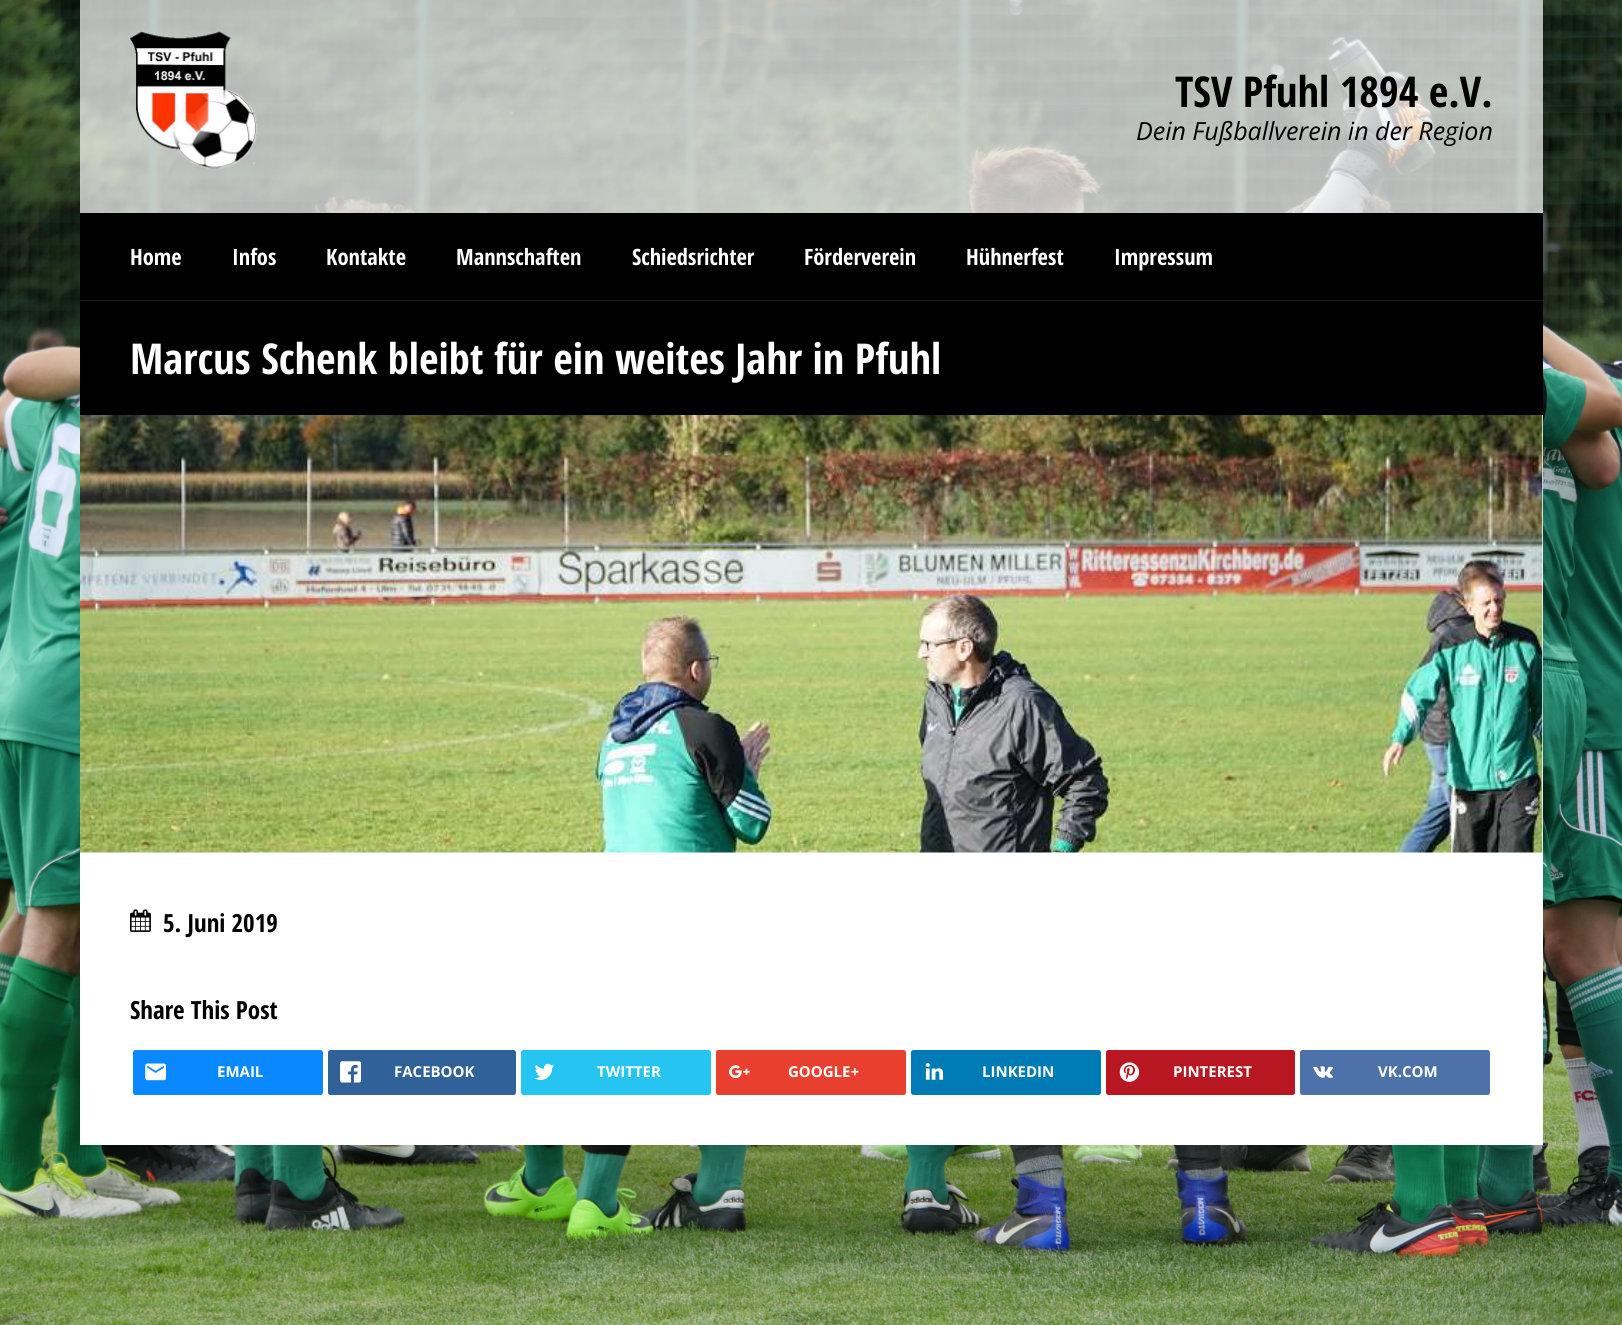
#include <cairo/cairo.h>
#include <math.h>
#include <stddef.h>

typedef struct { double x, y; const char *s; } line_t;
typedef struct { double x, y, w, h; unsigned color; } box_t;
static cairo_t *cr;

static void rgb(unsigned color)
{
	cairo_set_source_rgb(cr, (color >> 16) / 255.0, (color >> 8 & 255) / 255.0, (color & 255) / 255.0);
}

static void rrect(double x, double y, double w, double h, double r)
{
	cairo_new_sub_path(cr);
	cairo_arc(cr, x + w - r, y + h - r, r, 0, M_PI / 2);
	cairo_arc(cr, x + r, y + h - r, r, M_PI / 2, M_PI);
	cairo_arc(cr, x + r, y + r, r, M_PI, 1.5 * M_PI);
	cairo_arc(cr, x + w - r, y + r, r, 1.5 * M_PI, 2 * M_PI);
	cairo_close_path(cr);
}

static void image(const char *path, double x, double y, double w, double h)
{
	cairo_surface_t *image = cairo_image_surface_create_from_png(path);
	cairo_save(cr);
	cairo_set_source_surface(cr, image, x, y);
	cairo_rectangle(cr, x, y, w, h);
	cairo_fill(cr);
	cairo_restore(cr);
	cairo_surface_destroy(image);
}

int main(void) {
	cairo_surface_t *surface = cairo_image_surface_create(CAIRO_FORMAT_RGB24, 1622, 1325);
	cr = cairo_create(surface);
	cairo_font_options_t *options = cairo_font_options_create();
	cairo_font_options_set_hint_metrics(options, CAIRO_HINT_METRICS_OFF);
	cairo_font_options_set_hint_style(options, CAIRO_HINT_STYLE_NONE);
	cairo_set_font_options(cr, options);
	cairo_set_miter_limit(cr, 4);
	rgb(0xffffff);
	cairo_paint(cr);
	image("img/1.png", 0, 0, 1622, 1325);
	cairo_set_source_rgba(cr, 1, 1, 1, 0.7);
	cairo_rectangle(cr, 80, 0, 1463, 213);
	cairo_fill(cr);
	image("img/2.png", 130, 31, 128, 138);
	{
		static const box_t items[] = {
			{80, 213, 1463, 87, 0x000000},
			{80, 301, 1463, 114, 0x000000},
			{80, 300, 1463, 1, 0x1a1a1a},
			{80, 415, 1463, 730, 0xffffff},
		};
		for (size_t i = 0; i < sizeof items / sizeof *items; i++) {
			rgb(items[i].color);
			cairo_rectangle(cr, items[i].x, items[i].y, items[i].w, items[i].h);
			cairo_fill(cr);
		}
	}
	image("img/3.png", 80, 415, 1463, 438);
	image("img/4.png", 130, 909, 21, 23);
	rgb(0x0a88ff);
	rrect(133, 1050, 190, 45, 2.5);
	cairo_fill(cr);
	image("img/5.png", 145, 1063, 21, 18);
	rgb(0x306199);
	rrect(328, 1050, 188, 45, 2.5);
	cairo_fill(cr);
	image("img/6.png", 340, 1061, 21, 22);
	rgb(0x26c4f1);
	rrect(521, 1050, 190, 45, 2.5);
	cairo_fill(cr);
	image("img/7.png", 534, 1063, 20, 17);
	rgb(0xe93f2e);
	rrect(716, 1050, 190, 45, 2.5);
	cairo_fill(cr);
	image("img/8.png", 729, 1065, 21, 14);
	rgb(0x007bb6);
	rrect(911, 1050, 190, 45, 2.5);
	cairo_fill(cr);
	image("img/9.png", 925, 1063, 19, 17);
	rgb(0xb81621);
	rrect(1106, 1050, 189, 45, 2.5);
	cairo_fill(cr);
	image("img/10.png", 1119, 1062, 21, 20);
	rgb(0x4d71a9);
	rrect(1300, 1050, 190, 45, 2.5);
	cairo_fill(cr);
	image("img/11.png", 1313, 1066, 20, 12);
	cairo_select_font_face(cr, "Open Sans Condensed", CAIRO_FONT_SLANT_NORMAL, CAIRO_FONT_WEIGHT_BOLD);
	cairo_set_font_size(cr, 42.5);
	rgb(0x000000);
	cairo_move_to(cr, 1175, 107);
	cairo_show_text(cr, "TSV Pfuhl 1894 e.V.");
	cairo_select_font_face(cr, "Open Sans", CAIRO_FONT_SLANT_ITALIC, CAIRO_FONT_WEIGHT_NORMAL);
	cairo_set_font_size(cr, 25);
	cairo_move_to(cr, 1136, 140);
	cairo_show_text(cr, "Dein Fußballverein in der Region");
	cairo_select_font_face(cr, "Open Sans Condensed", CAIRO_FONT_SLANT_NORMAL, CAIRO_FONT_WEIGHT_BOLD);
	cairo_set_font_size(cr, 22.5);
	rgb(0xffffff);
	{
		static const line_t items[] = {
			{130, 265, "Home"},
			{232, 265, "Infos"},
			{326, 265, "Kontakte"},
			{456, 265, "Mannschaften"},
			{632, 265, "Schiedsrichter"},
			{804, 265, "Förderverein"},
			{966, 265, "Hühnerfest"},
			{1114, 265, "Impressum"},
		};
		for (size_t i = 0; i < sizeof items / sizeof *items; i++) {
			cairo_move_to(cr, items[i].x, items[i].y);
			cairo_show_text(cr, items[i].s);
		}
	}
	cairo_set_font_size(cr, 42.5);
	cairo_move_to(cr, 130, 374);
	cairo_show_text(cr, "Marcus Schenk bleibt für ein weites Jahr in Pfuhl");
	cairo_set_font_size(cr, 25);
	rgb(0x000000);
	cairo_move_to(cr, 163, 932);
	cairo_show_text(cr, "5. Juni 2019");
	cairo_move_to(cr, 130, 1019);
	cairo_show_text(cr, "Share This Post");
	cairo_select_font_face(cr, "Open Sans", CAIRO_FONT_SLANT_NORMAL, CAIRO_FONT_WEIGHT_BOLD);
	cairo_set_font_size(cr, 15);
	rgb(0xffffff);
	{
		static const line_t items[] = {
			{217, 1077, "EMAIL"},
			{394, 1077, "FACEBOOK"},
			{597, 1077, "TWITTER"},
			{788, 1077, "GOOGLE+"},
			{982, 1077, "LINKEDIN"},
			{1173, 1077, "PINTEREST"},
			{1378, 1077, "VK.COM"},
		};
		for (size_t i = 0; i < sizeof items / sizeof *items; i++) {
			cairo_move_to(cr, items[i].x, items[i].y);
			cairo_show_text(cr, items[i].s);
		}
	}
	cairo_surface_write_to_png(surface, "page.png");
	cairo_font_options_destroy(options);
	cairo_destroy(cr);
	cairo_surface_destroy(surface);
	return 0;
}
